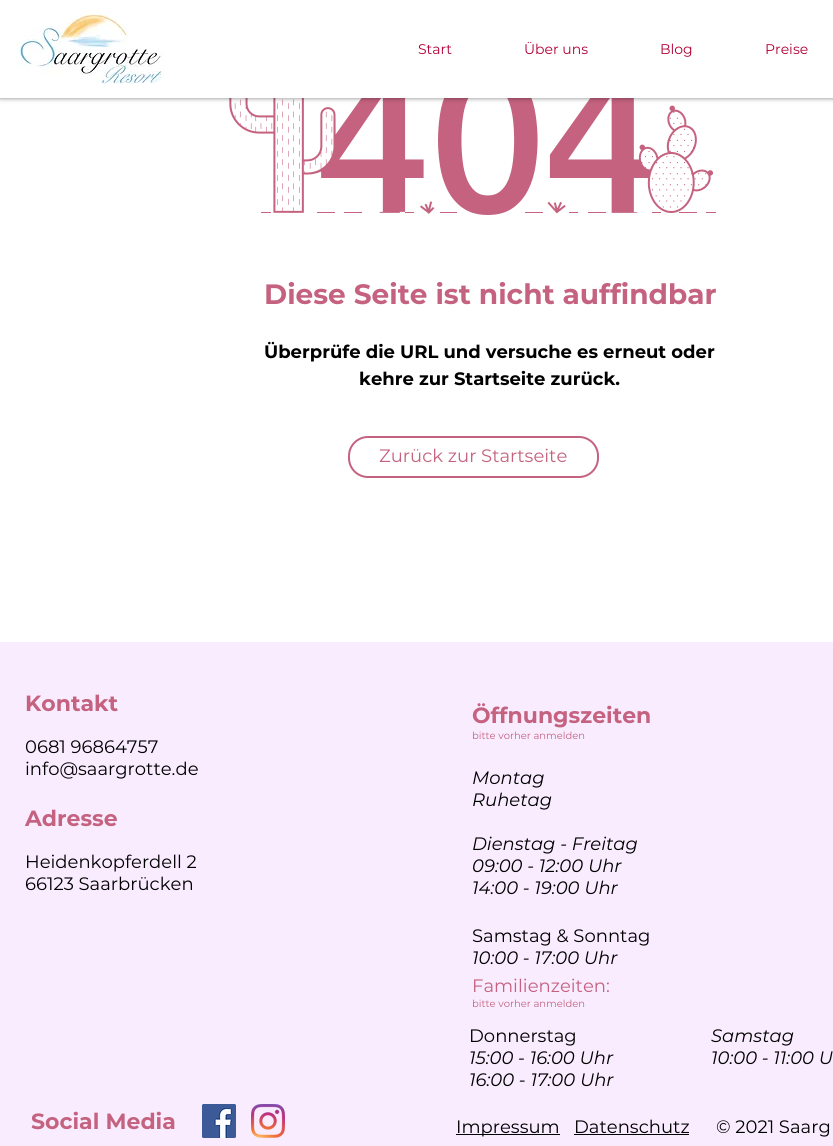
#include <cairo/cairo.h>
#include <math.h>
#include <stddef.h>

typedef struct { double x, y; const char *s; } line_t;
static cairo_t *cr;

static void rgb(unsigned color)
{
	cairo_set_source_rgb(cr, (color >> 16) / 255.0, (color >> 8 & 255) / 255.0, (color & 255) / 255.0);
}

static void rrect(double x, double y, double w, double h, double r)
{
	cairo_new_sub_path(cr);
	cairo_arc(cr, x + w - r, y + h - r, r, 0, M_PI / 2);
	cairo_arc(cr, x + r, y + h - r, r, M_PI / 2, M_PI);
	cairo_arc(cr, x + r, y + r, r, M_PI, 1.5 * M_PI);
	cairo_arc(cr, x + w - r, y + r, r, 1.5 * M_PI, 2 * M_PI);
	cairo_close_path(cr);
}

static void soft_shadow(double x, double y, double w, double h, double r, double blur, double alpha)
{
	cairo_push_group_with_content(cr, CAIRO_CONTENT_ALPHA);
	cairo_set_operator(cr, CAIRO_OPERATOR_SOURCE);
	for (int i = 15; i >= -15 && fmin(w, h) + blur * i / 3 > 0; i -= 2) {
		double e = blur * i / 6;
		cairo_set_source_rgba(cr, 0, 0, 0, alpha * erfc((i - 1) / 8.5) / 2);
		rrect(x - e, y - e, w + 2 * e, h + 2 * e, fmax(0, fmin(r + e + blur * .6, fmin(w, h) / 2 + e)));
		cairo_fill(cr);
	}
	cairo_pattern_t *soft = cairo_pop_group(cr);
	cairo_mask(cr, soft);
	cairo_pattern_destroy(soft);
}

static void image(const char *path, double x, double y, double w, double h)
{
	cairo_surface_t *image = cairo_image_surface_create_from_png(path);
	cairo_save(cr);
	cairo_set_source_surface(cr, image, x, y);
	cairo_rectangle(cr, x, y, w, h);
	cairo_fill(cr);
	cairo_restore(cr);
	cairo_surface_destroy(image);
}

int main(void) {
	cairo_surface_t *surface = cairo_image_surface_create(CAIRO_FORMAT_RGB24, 833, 1146);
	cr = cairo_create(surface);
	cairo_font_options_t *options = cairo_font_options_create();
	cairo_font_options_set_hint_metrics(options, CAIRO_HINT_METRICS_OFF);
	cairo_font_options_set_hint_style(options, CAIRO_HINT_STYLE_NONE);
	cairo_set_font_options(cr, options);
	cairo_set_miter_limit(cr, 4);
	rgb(0xffffff);
	cairo_paint(cr);
	image("img/2.png", 229, 98, 487, 117);
	rgb(0x000000);
	soft_shadow(0, 0, 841, 98, 0, 2.5, 0.5);
	rgb(0xffffff);
	cairo_rectangle(cr, 0, 0, 833, 98);
	cairo_fill(cr);
	image("img/1.png", 16, 11, 148, 73);
	rrect(349, 437, 249, 40, 19);
	rgb(0xc4627f);
	cairo_stroke(cr);
	rgb(0xf9ecff);
	cairo_rectangle(cr, 0, 642, 833, 504);
	cairo_fill(cr);
	image("img/3.png", 202, 1104, 34, 34);
	image("img/4.png", 251, 1104, 34, 34);
	rgb(0x000000);
	cairo_rectangle(cr, 456, 1134, 104, 1);
	cairo_fill(cr);
	cairo_rectangle(cr, 574, 1134, 115, 1);
	cairo_fill(cr);
	cairo_select_font_face(cr, "Montserrat", CAIRO_FONT_SLANT_NORMAL, CAIRO_FONT_WEIGHT_NORMAL);
	cairo_set_font_size(cr, 14);
	rgb(0xb00035);
	{
		static const line_t items[] = {
			{418, 54, "Start"},
			{524, 54, "Über uns"},
			{660, 54, "Blog"},
			{765, 54, "Preise"},
		};
		for (size_t i = 0; i < sizeof items / sizeof *items; i++) {
			cairo_move_to(cr, items[i].x, items[i].y);
			cairo_show_text(cr, items[i].s);
		}
	}
	cairo_select_font_face(cr, "Montserrat", CAIRO_FONT_SLANT_NORMAL, CAIRO_FONT_WEIGHT_BOLD);
	cairo_set_font_size(cr, 28);
	rgb(0xc4627f);
	cairo_move_to(cr, 264, 304);
	cairo_show_text(cr, "Diese Seite ist nicht auffindbar");
	cairo_set_font_size(cr, 18);
	rgb(0x000000);
	cairo_move_to(cr, 264, 358);
	cairo_show_text(cr, "Überprüfe die URL und versuche es erneut oder");
	cairo_move_to(cr, 359, 385);
	cairo_show_text(cr, "kehre zur Startseite zurück.");
	cairo_select_font_face(cr, "Montserrat", CAIRO_FONT_SLANT_NORMAL, CAIRO_FONT_WEIGHT_NORMAL);
	rgb(0xc4627f);
	cairo_move_to(cr, 379, 462);
	cairo_show_text(cr, "Zurück zur Startseite");
	cairo_select_font_face(cr, "Montserrat", CAIRO_FONT_SLANT_NORMAL, CAIRO_FONT_WEIGHT_BOLD);
	cairo_set_font_size(cr, 22);
	cairo_move_to(cr, 25, 711);
	cairo_show_text(cr, "Kontakt");
	cairo_select_font_face(cr, "Montserrat", CAIRO_FONT_SLANT_NORMAL, CAIRO_FONT_WEIGHT_NORMAL);
	cairo_set_font_size(cr, 18);
	rgb(0x000000);
	cairo_move_to(cr, 25, 753);
	cairo_show_text(cr, "0681 96864757");
	cairo_move_to(cr, 25, 775);
	cairo_show_text(cr, "info@saargrotte.de");
	cairo_select_font_face(cr, "Montserrat", CAIRO_FONT_SLANT_NORMAL, CAIRO_FONT_WEIGHT_BOLD);
	cairo_set_font_size(cr, 22);
	rgb(0xc4627f);
	cairo_move_to(cr, 25, 826);
	cairo_show_text(cr, "Adresse");
	cairo_select_font_face(cr, "Montserrat", CAIRO_FONT_SLANT_NORMAL, CAIRO_FONT_WEIGHT_NORMAL);
	cairo_set_font_size(cr, 18);
	rgb(0x000000);
	cairo_move_to(cr, 25, 868);
	cairo_show_text(cr, "Heidenkopferdell 2");
	cairo_move_to(cr, 25, 890);
	cairo_show_text(cr, "66123 Saarbrücken");
	cairo_select_font_face(cr, "Montserrat", CAIRO_FONT_SLANT_NORMAL, CAIRO_FONT_WEIGHT_BOLD);
	cairo_set_font_size(cr, 22);
	rgb(0xc4627f);
	cairo_move_to(cr, 472, 723);
	cairo_show_text(cr, "Öffnungszeiten");
	cairo_select_font_face(cr, "Montserrat", CAIRO_FONT_SLANT_NORMAL, CAIRO_FONT_WEIGHT_NORMAL);
	cairo_set_font_size(cr, 10);
	cairo_move_to(cr, 472, 739);
	cairo_show_text(cr, "bitte vorher anmelden");
	cairo_select_font_face(cr, "Montserrat", CAIRO_FONT_SLANT_ITALIC, CAIRO_FONT_WEIGHT_NORMAL);
	cairo_set_font_size(cr, 18);
	rgb(0x000000);
	{
		static const line_t items[] = {
			{472, 784, "Montag"},
			{472, 806, "Ruhetag"},
			{472, 850, "Dienstag - Freitag"},
			{472, 872, "09:00 - 12:00 Uhr"},
			{472, 894, "14:00 - 19:00 Uhr"},
		};
		for (size_t i = 0; i < sizeof items / sizeof *items; i++) {
			cairo_move_to(cr, items[i].x, items[i].y);
			cairo_show_text(cr, items[i].s);
		}
	}
	cairo_select_font_face(cr, "Montserrat", CAIRO_FONT_SLANT_NORMAL, CAIRO_FONT_WEIGHT_NORMAL);
	cairo_move_to(cr, 472, 942);
	cairo_show_text(cr, "Samstag & Sonntag");
	cairo_select_font_face(cr, "Montserrat", CAIRO_FONT_SLANT_ITALIC, CAIRO_FONT_WEIGHT_NORMAL);
	cairo_move_to(cr, 472, 964);
	cairo_show_text(cr, "10:00 - 17:00 Uhr");
	cairo_select_font_face(cr, "Montserrat", CAIRO_FONT_SLANT_NORMAL, CAIRO_FONT_WEIGHT_NORMAL);
	rgb(0xc4627f);
	cairo_move_to(cr, 472, 992);
	cairo_show_text(cr, "Familienzeiten:");
	cairo_set_font_size(cr, 10);
	cairo_move_to(cr, 472, 1007);
	cairo_show_text(cr, "bitte vorher anmelden");
	cairo_set_font_size(cr, 18);
	rgb(0x000000);
	cairo_move_to(cr, 469, 1042);
	cairo_show_text(cr, "Donnerstag");
	cairo_select_font_face(cr, "Montserrat", CAIRO_FONT_SLANT_ITALIC, CAIRO_FONT_WEIGHT_NORMAL);
	{
		static const line_t items[] = {
			{469, 1064, "15:00 - 16:00 Uhr"},
			{469, 1086, "16:00 - 17:00 Uhr"},
			{711, 1042, "Samstag"},
			{711, 1064, "10:00 - 11:00 U"},
		};
		for (size_t i = 0; i < sizeof items / sizeof *items; i++) {
			cairo_move_to(cr, items[i].x, items[i].y);
			cairo_show_text(cr, items[i].s);
		}
	}
	cairo_select_font_face(cr, "Montserrat", CAIRO_FONT_SLANT_NORMAL, CAIRO_FONT_WEIGHT_BOLD);
	cairo_set_font_size(cr, 22);
	rgb(0xc4627f);
	cairo_move_to(cr, 31, 1129);
	cairo_show_text(cr, "Social Media");
	cairo_select_font_face(cr, "Montserrat", CAIRO_FONT_SLANT_NORMAL, CAIRO_FONT_WEIGHT_NORMAL);
	cairo_set_font_size(cr, 18);
	rgb(0x000000);
	{
		static const line_t items[] = {
			{456, 1133, "Impressum"},
			{574, 1133, "Datenschutz"},
			{716, 1133, "© 2021 Saarg"},
		};
		for (size_t i = 0; i < sizeof items / sizeof *items; i++) {
			cairo_move_to(cr, items[i].x, items[i].y);
			cairo_show_text(cr, items[i].s);
		}
	}
	cairo_surface_write_to_png(surface, "page.png");
	cairo_font_options_destroy(options);
	cairo_destroy(cr);
	cairo_surface_destroy(surface);
	return 0;
}
